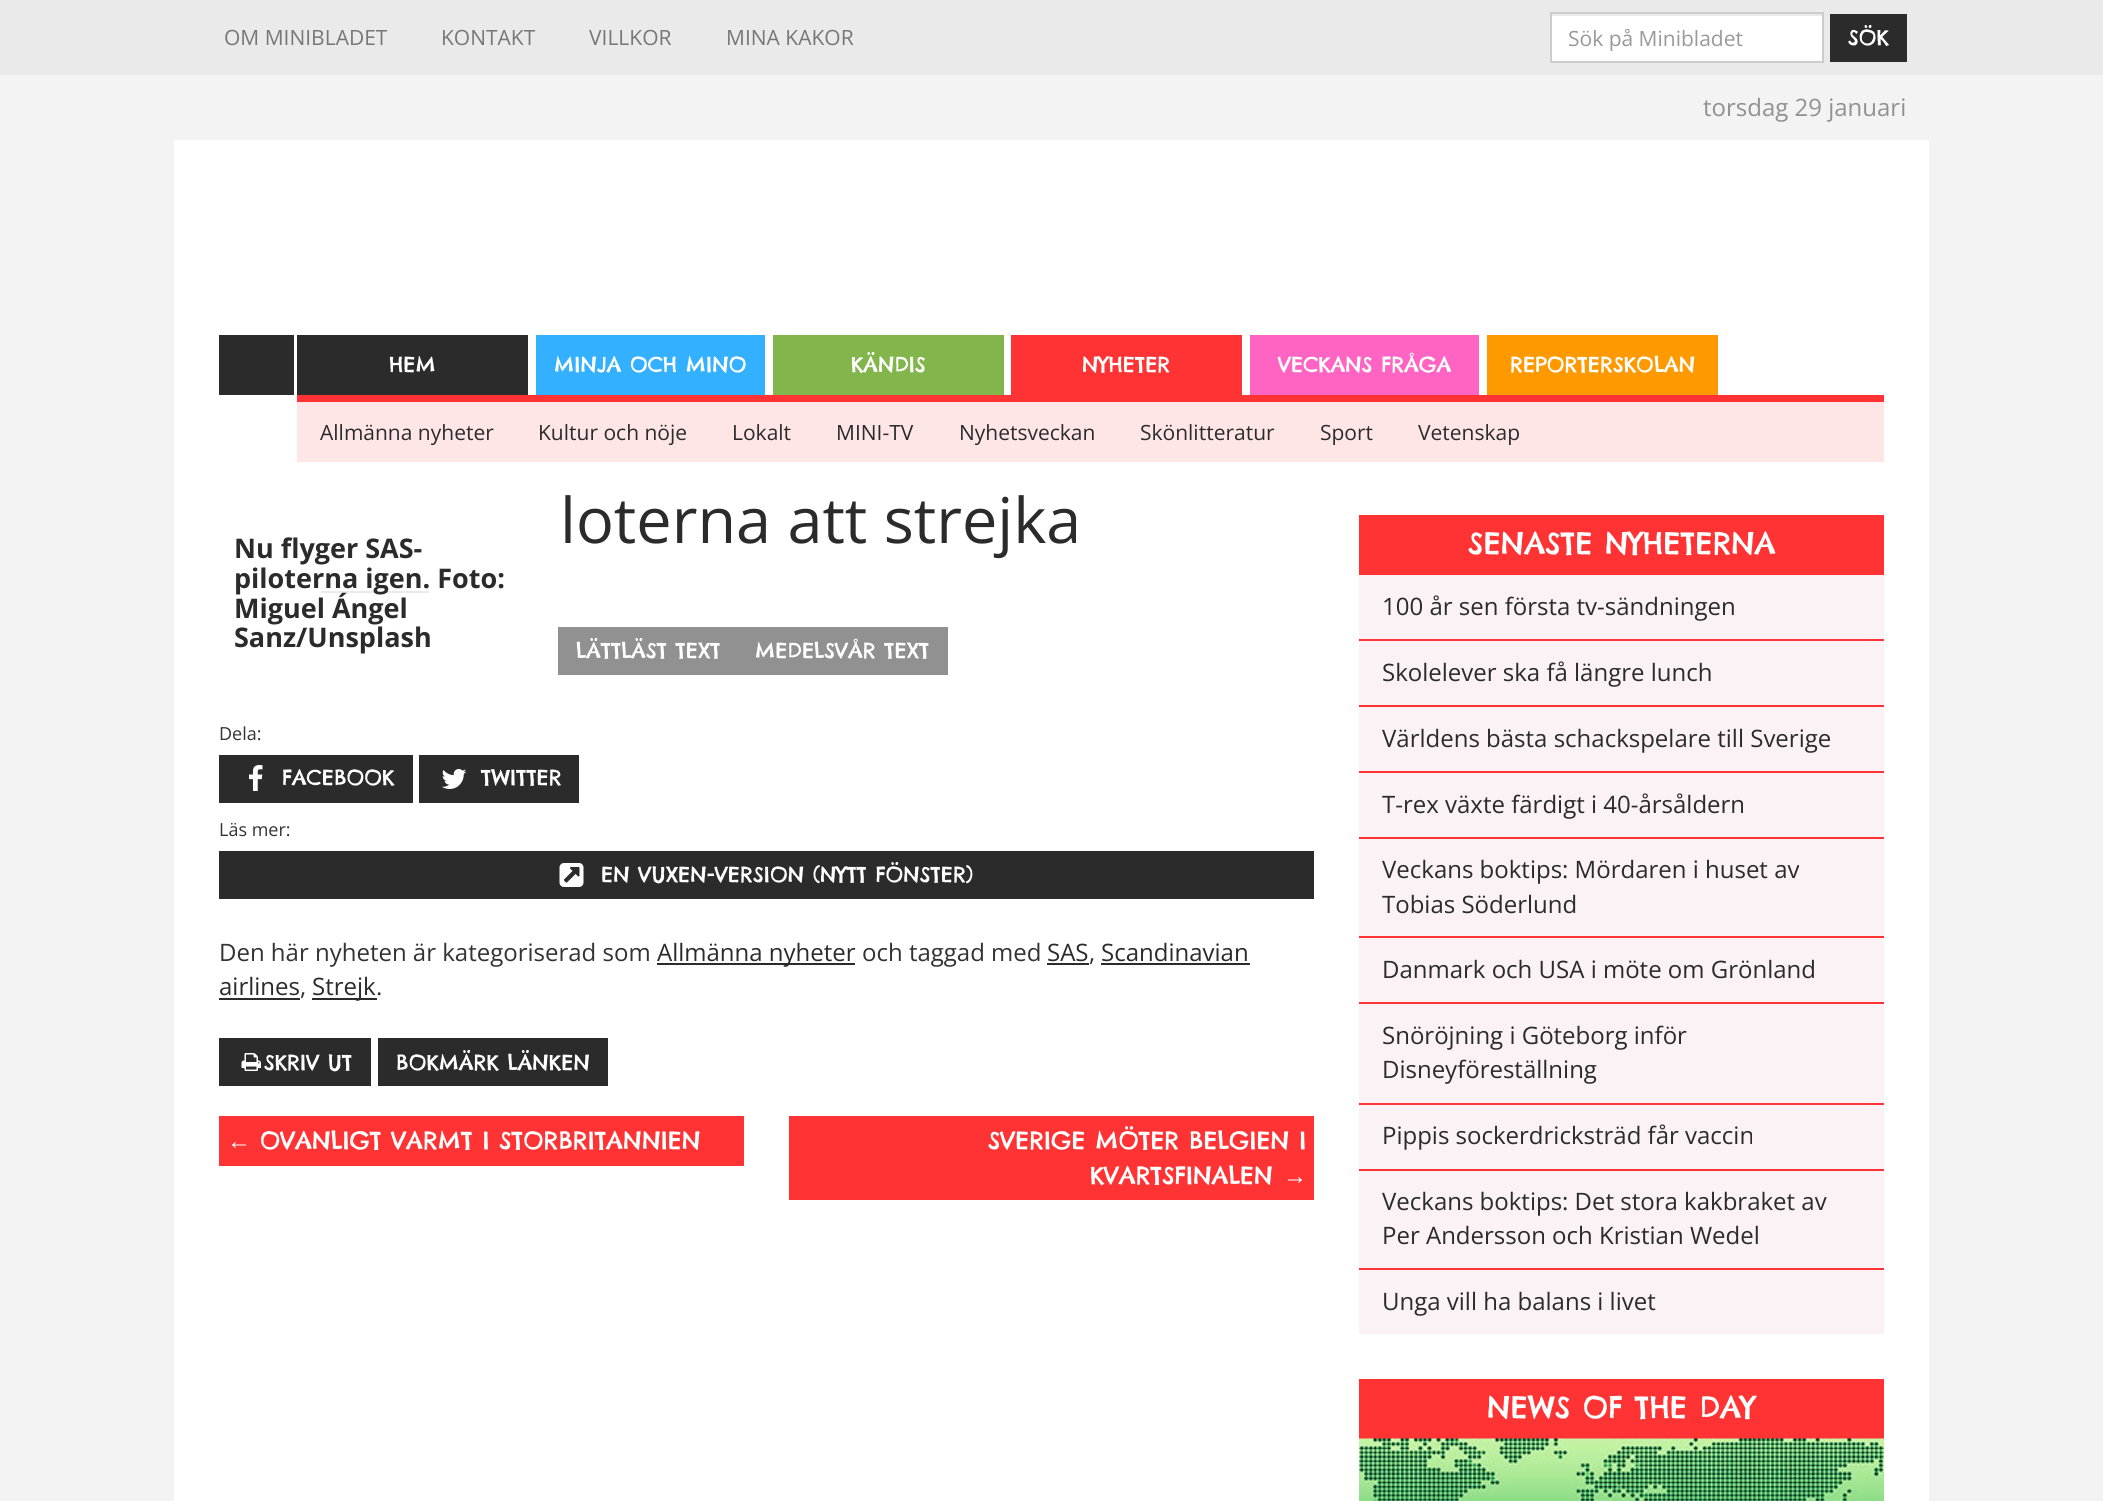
#include <cairo/cairo.h>
#include <math.h>
#include <stddef.h>

typedef struct { double x, y; const char *s; } line_t;
typedef struct { double x, y, w, h; unsigned color; } box_t;
static cairo_t *cr;

static void rgb(unsigned color)
{
	cairo_set_source_rgb(cr, (color >> 16) / 255.0, (color >> 8 & 255) / 255.0, (color & 255) / 255.0);
}

static void image(const char *path, double x, double y, double w, double h)
{
	cairo_surface_t *image = cairo_image_surface_create_from_png(path);
	cairo_save(cr);
	cairo_set_source_surface(cr, image, x, y);
	cairo_rectangle(cr, x, y, w, h);
	cairo_fill(cr);
	cairo_restore(cr);
	cairo_surface_destroy(image);
}

int main(void) {
	cairo_surface_t *surface = cairo_image_surface_create(CAIRO_FORMAT_RGB24, 2103, 1501);
	cr = cairo_create(surface);
	cairo_font_options_t *options = cairo_font_options_create();
	cairo_font_options_set_hint_metrics(options, CAIRO_HINT_METRICS_OFF);
	cairo_font_options_set_hint_style(options, CAIRO_HINT_STYLE_NONE);
	cairo_set_font_options(cr, options);
	cairo_set_miter_limit(cr, 4);
	rgb(0xf4f3f3);
	cairo_paint(cr);
	rgb(0xeaeaea);
	cairo_rectangle(cr, 0, 0, 2103, 75);
	cairo_fill(cr);
	rgb(0xffffff);
	cairo_rectangle(cr, 1552, 16, 270, 45);
	cairo_fill(cr);
	cairo_rectangle(cr, 1551, 13, 272, 49);
	rgb(0xcccccc);
	cairo_stroke(cr);
	rgb(0x2b2b2b);
	cairo_rectangle(cr, 1830, 14, 77, 48);
	cairo_fill(cr);
	rgb(0xffffff);
	cairo_rectangle(cr, 174, 140, 1755, 1361);
	cairo_fill(cr);
	rgb(0x2b2b2b);
	cairo_rectangle(cr, 219, 335, 75, 60);
	cairo_fill(cr);
	cairo_rectangle(cr, 297, 335, 231, 60);
	cairo_fill(cr);
	rgb(0x33b0ff);
	cairo_rectangle(cr, 536, 335, 229, 60);
	cairo_fill(cr);
	rgb(0x82b64d);
	cairo_rectangle(cr, 773, 335, 231, 60);
	cairo_fill(cr);
	rgb(0xff3333);
	cairo_rectangle(cr, 1011, 335, 231, 60);
	cairo_fill(cr);
	rgb(0xff64c3);
	cairo_rectangle(cr, 1250, 335, 229, 60);
	cairo_fill(cr);
	rgb(0xff9900);
	cairo_rectangle(cr, 1487, 335, 231, 60);
	cairo_fill(cr);
	rgb(0xffe6e6);
	cairo_rectangle(cr, 297, 402, 1587, 60);
	cairo_fill(cr);
	rgb(0xff3333);
	cairo_rectangle(cr, 297, 395, 1587, 7);
	cairo_fill(cr);
	rgb(0x999999);
	cairo_rectangle(cr, 321, 591, 108, 2);
	cairo_fill(cr);
	cairo_set_source_rgba(cr, 1, 1, 1, 0.8);
	cairo_rectangle(cr, 321, 591, 108, 2);
	cairo_fill(cr);
	rgb(0x919191);
	cairo_rectangle(cr, 558, 627, 390, 48);
	cairo_fill(cr);
	rgb(0x2b2b2b);
	cairo_rectangle(cr, 219, 755, 194, 48);
	cairo_fill(cr);
	image("img/1.png", 249, 765, 14, 26);
	cairo_rectangle(cr, 419, 755, 160, 48);
	cairo_fill(cr);
	image("img/2.png", 441, 769, 26, 20);
	cairo_rectangle(cr, 219, 851, 1095, 48);
	cairo_fill(cr);
	image("img/3.png", 559, 863, 25, 24);
	{
		static const box_t items[] = {
			{657, 963, 198, 2, 0x2b2b2b},
			{1047, 963, 42, 2, 0x2b2b2b},
			{1101, 963, 149, 2, 0x2b2b2b},
			{219, 998, 81, 2, 0x2b2b2b},
			{312, 998, 65, 2, 0x2b2b2b},
			{219, 1038, 152, 48, 0x2b2b2b},
		};
		for (size_t i = 0; i < sizeof items / sizeof *items; i++) {
			rgb(items[i].color);
			cairo_rectangle(cr, items[i].x, items[i].y, items[i].w, items[i].h);
			cairo_fill(cr);
		}
	}
	image("img/4.png", 241, 1053, 20, 18);
	{
		static const box_t items[] = {
			{378, 1038, 230, 48, 0x2b2b2b},
			{219, 1116, 525, 50, 0xff3333},
			{789, 1116, 525, 84, 0xff3333},
			{1359, 575, 525, 759, 0xfbf2f5},
			{1359, 515, 525, 60, 0xff3333},
			{1359, 639, 525, 2, 0xff3333},
			{1359, 705, 525, 2, 0xff3333},
			{1359, 771, 525, 2, 0xff3333},
			{1359, 837, 525, 2, 0xff3333},
			{1359, 936, 525, 2, 0xff3333},
			{1359, 1002, 525, 2, 0xff3333},
			{1359, 1103, 525, 2, 0xff3333},
			{1359, 1169, 525, 2, 0xff3333},
			{1359, 1268, 525, 2, 0xff3333},
			{1359, 1379, 525, 60, 0xff3333},
		};
		for (size_t i = 0; i < sizeof items / sizeof *items; i++) {
			rgb(items[i].color);
			cairo_rectangle(cr, items[i].x, items[i].y, items[i].w, items[i].h);
			cairo_fill(cr);
		}
	}
	image("img/5.png", 1359, 1438, 525, 63);
	cairo_select_font_face(cr, "Open Sans", CAIRO_FONT_SLANT_NORMAL, CAIRO_FONT_WEIGHT_NORMAL);
	cairo_set_font_size(cr, 21);
	rgb(0x777777);
	{
		static const line_t items[] = {
			{224, 45, "OM MINIBLADET"},
			{441, 45, "KONTAKT"},
			{589, 45, "VILLKOR"},
			{726, 45, "MINA KAKOR"},
		};
		for (size_t i = 0; i < sizeof items / sizeof *items; i++) {
			cairo_move_to(cr, items[i].x, items[i].y);
			cairo_show_text(cr, items[i].s);
		}
	}
	rgb(0x999999);
	cairo_move_to(cr, 1568, 46);
	cairo_show_text(cr, "Sök på Minibladet");
	cairo_select_font_face(cr, "Chelsea Market", CAIRO_FONT_SLANT_NORMAL, CAIRO_FONT_WEIGHT_NORMAL);
	rgb(0xffffff);
	cairo_move_to(cr, 1848, 45);
	cairo_show_text(cr, "SÖK");
	cairo_select_font_face(cr, "Open Sans", CAIRO_FONT_SLANT_NORMAL, CAIRO_FONT_WEIGHT_NORMAL);
	cairo_set_font_size(cr, 24);
	rgb(0x919191);
	cairo_move_to(cr, 1703, 116);
	cairo_show_text(cr, "torsdag 29 januari");
	cairo_select_font_face(cr, "Chelsea Market", CAIRO_FONT_SLANT_NORMAL, CAIRO_FONT_WEIGHT_NORMAL);
	cairo_set_font_size(cr, 21);
	rgb(0xffffff);
	{
		static const line_t items[] = {
			{389, 372, "HEM"},
			{554, 372, "MINJA OCH MINO"},
			{851, 372, "KÄNDIS"},
			{1082, 372, "NYHETER"},
			{1278, 372, "VECKANS FRÅGA"},
			{1510, 372, "REPORTERSKOLAN"},
		};
		for (size_t i = 0; i < sizeof items / sizeof *items; i++) {
			cairo_move_to(cr, items[i].x, items[i].y);
			cairo_show_text(cr, items[i].s);
		}
	}
	cairo_select_font_face(cr, "Open Sans", CAIRO_FONT_SLANT_NORMAL, CAIRO_FONT_WEIGHT_NORMAL);
	rgb(0x2b2b2b);
	{
		static const line_t items[] = {
			{320, 440, "Allmänna nyheter"},
			{538, 440, "Kultur och nöje"},
			{732, 440, "Lokalt"},
			{836, 440, "MINI-TV"},
			{959, 440, "Nyhetsveckan"},
			{1140, 440, "Skönlitteratur"},
			{1320, 440, "Sport"},
			{1418, 440, "Vetenskap"},
		};
		for (size_t i = 0; i < sizeof items / sizeof *items; i++) {
			cairo_move_to(cr, items[i].x, items[i].y);
			cairo_show_text(cr, items[i].s);
		}
	}
	cairo_set_font_size(cr, 63);
	cairo_move_to(cr, 560, 543);
	cairo_show_text(cr, "loterna att strejka");
	cairo_select_font_face(cr, "Open Sans", CAIRO_FONT_SLANT_NORMAL, CAIRO_FONT_WEIGHT_BOLD);
	cairo_set_font_size(cr, 27);
	{
		static const line_t items[] = {
			{234, 558, "Nu flyger SAS-"},
			{234, 588, "piloterna igen. Foto:"},
			{234, 618, "Miguel Ángel"},
			{234, 647, "Sanz/Unsplash"},
		};
		for (size_t i = 0; i < sizeof items / sizeof *items; i++) {
			cairo_move_to(cr, items[i].x, items[i].y);
			cairo_show_text(cr, items[i].s);
		}
	}
	cairo_select_font_face(cr, "Chelsea Market", CAIRO_FONT_SLANT_NORMAL, CAIRO_FONT_WEIGHT_NORMAL);
	cairo_set_font_size(cr, 21);
	rgb(0xffffff);
	cairo_move_to(cr, 576, 658);
	cairo_show_text(cr, "LÄTTLÄST TEXT");
	cairo_move_to(cr, 755, 658);
	cairo_show_text(cr, "MEDELSVÅR TEXT");
	cairo_select_font_face(cr, "Open Sans", CAIRO_FONT_SLANT_NORMAL, CAIRO_FONT_WEIGHT_NORMAL);
	cairo_set_font_size(cr, 18);
	rgb(0x333333);
	cairo_move_to(cr, 219, 740);
	cairo_show_text(cr, "Dela:");
	cairo_select_font_face(cr, "Chelsea Market", CAIRO_FONT_SLANT_NORMAL, CAIRO_FONT_WEIGHT_NORMAL);
	cairo_set_font_size(cr, 21);
	rgb(0xffffff);
	cairo_move_to(cr, 282, 785);
	cairo_show_text(cr, "FACEBOOK");
	cairo_move_to(cr, 481, 785);
	cairo_show_text(cr, "TWITTER");
	cairo_select_font_face(cr, "Open Sans", CAIRO_FONT_SLANT_NORMAL, CAIRO_FONT_WEIGHT_NORMAL);
	cairo_set_font_size(cr, 18);
	rgb(0x333333);
	cairo_move_to(cr, 219, 836);
	cairo_show_text(cr, "Läs mer:");
	cairo_select_font_face(cr, "Chelsea Market", CAIRO_FONT_SLANT_NORMAL, CAIRO_FONT_WEIGHT_NORMAL);
	cairo_set_font_size(cr, 21);
	rgb(0xffffff);
	cairo_move_to(cr, 601, 882);
	cairo_show_text(cr, "EN VUXEN-VERSION (NYTT FÖNSTER)");
	cairo_select_font_face(cr, "Open Sans", CAIRO_FONT_SLANT_NORMAL, CAIRO_FONT_WEIGHT_NORMAL);
	cairo_set_font_size(cr, 24);
	rgb(0x333333);
	cairo_move_to(cr, 219, 961);
	cairo_show_text(cr, "Den här nyheten är kategoriserad som");
	rgb(0x2b2b2b);
	cairo_move_to(cr, 657, 961);
	cairo_show_text(cr, "Allmänna nyheter");
	rgb(0x333333);
	cairo_move_to(cr, 862, 961);
	cairo_show_text(cr, "och taggad med");
	rgb(0x2b2b2b);
	cairo_move_to(cr, 1047, 961);
	cairo_show_text(cr, "SAS");
	rgb(0x333333);
	cairo_move_to(cr, 1089, 961);
	cairo_show_text(cr, ",");
	rgb(0x2b2b2b);
	cairo_move_to(cr, 1101, 961);
	cairo_show_text(cr, "Scandinavian");
	cairo_move_to(cr, 219, 995);
	cairo_show_text(cr, "airlines");
	rgb(0x333333);
	cairo_move_to(cr, 300, 995);
	cairo_show_text(cr, ",");
	rgb(0x2b2b2b);
	cairo_move_to(cr, 312, 995);
	cairo_show_text(cr, "Strejk");
	rgb(0x333333);
	cairo_move_to(cr, 376, 995);
	cairo_show_text(cr, ".");
	cairo_select_font_face(cr, "Chelsea Market", CAIRO_FONT_SLANT_NORMAL, CAIRO_FONT_WEIGHT_NORMAL);
	cairo_set_font_size(cr, 21);
	rgb(0xffffff);
	cairo_move_to(cr, 264, 1070);
	cairo_show_text(cr, "SKRIV UT");
	cairo_move_to(cr, 396, 1070);
	cairo_show_text(cr, "BOKMÄRK LÄNKEN");
	cairo_select_font_face(cr, "Liberation Sans", CAIRO_FONT_SLANT_NORMAL, CAIRO_FONT_WEIGHT_NORMAL);
	cairo_set_font_size(cr, 24);
	cairo_move_to(cr, 227, 1149);
	cairo_show_text(cr, "←");
	cairo_select_font_face(cr, "Chelsea Market", CAIRO_FONT_SLANT_NORMAL, CAIRO_FONT_WEIGHT_NORMAL);
	{
		static const line_t items[] = {
			{260, 1149, "OVANLIGT VARMT I STORBRITANNIEN"},
			{988, 1149, "SVERIGE MÖTER BELGIEN I"},
			{1090, 1184, "KVARTSFINALEN"},
		};
		for (size_t i = 0; i < sizeof items / sizeof *items; i++) {
			cairo_move_to(cr, items[i].x, items[i].y);
			cairo_show_text(cr, items[i].s);
		}
	}
	cairo_select_font_face(cr, "Liberation Sans", CAIRO_FONT_SLANT_NORMAL, CAIRO_FONT_WEIGHT_NORMAL);
	cairo_move_to(cr, 1283, 1184);
	cairo_show_text(cr, "→");
	cairo_select_font_face(cr, "Chelsea Market", CAIRO_FONT_SLANT_NORMAL, CAIRO_FONT_WEIGHT_NORMAL);
	cairo_set_font_size(cr, 30);
	cairo_move_to(cr, 1468, 554);
	cairo_show_text(cr, "SENASTE NYHETERNA");
	cairo_select_font_face(cr, "Open Sans", CAIRO_FONT_SLANT_NORMAL, CAIRO_FONT_WEIGHT_NORMAL);
	cairo_set_font_size(cr, 24);
	rgb(0x2b2b2b);
	{
		static const line_t items[] = {
			{1382, 615, "100 år sen första tv-sändningen"},
			{1382, 681, "Skolelever ska få längre lunch"},
			{1382, 747, "Världens bästa schackspelare till Sverige"},
			{1382, 813, "T-rex växte färdigt i 40-årsåldern"},
			{1382, 878, "Veckans boktips: Mördaren i huset av"},
			{1382, 913, "Tobias Söderlund"},
			{1382, 978, "Danmark och USA i möte om Grönland"},
			{1382, 1044, "Snöröjning i Göteborg inför"},
			{1382, 1078, "Disneyföreställning"},
			{1382, 1144, "Pippis sockerdricksträd får vaccin"},
			{1382, 1210, "Veckans boktips: Det stora kakbraket av"},
			{1382, 1244, "Per Andersson och Kristian Wedel"},
			{1382, 1310, "Unga vill ha balans i livet"},
		};
		for (size_t i = 0; i < sizeof items / sizeof *items; i++) {
			cairo_move_to(cr, items[i].x, items[i].y);
			cairo_show_text(cr, items[i].s);
		}
	}
	cairo_select_font_face(cr, "Chelsea Market", CAIRO_FONT_SLANT_NORMAL, CAIRO_FONT_WEIGHT_NORMAL);
	cairo_set_font_size(cr, 30);
	rgb(0xffffff);
	cairo_move_to(cr, 1487, 1418);
	cairo_show_text(cr, "NEWS OF THE DAY");
	cairo_surface_write_to_png(surface, "page.png");
	cairo_font_options_destroy(options);
	cairo_destroy(cr);
	cairo_surface_destroy(surface);
	return 0;
}
